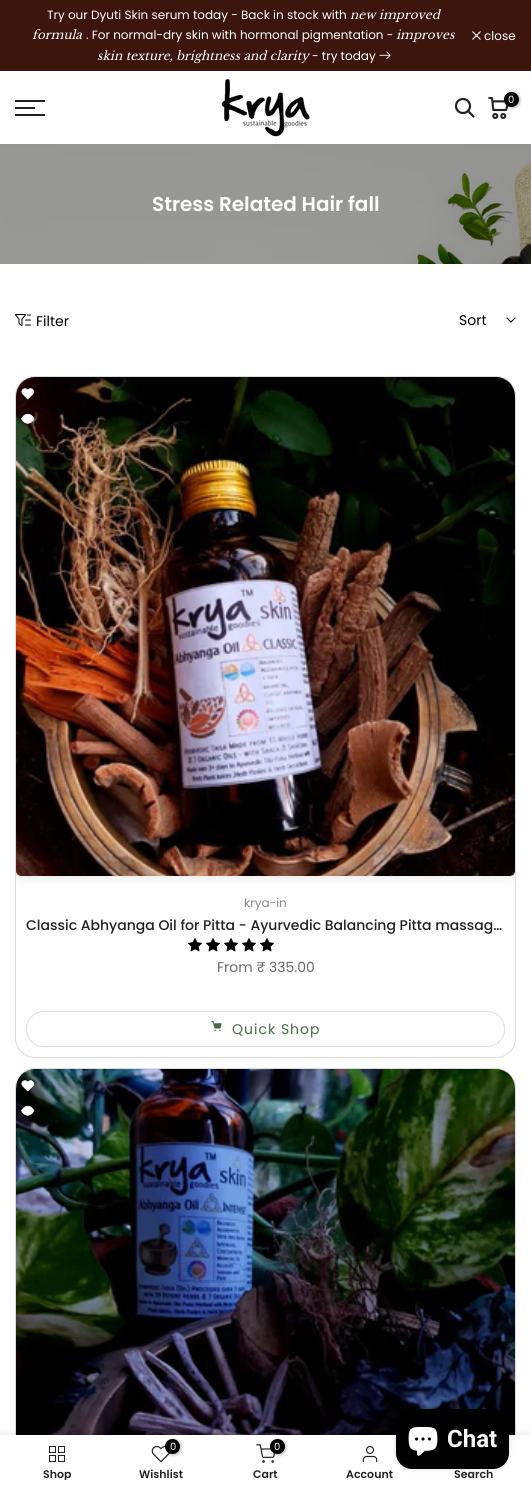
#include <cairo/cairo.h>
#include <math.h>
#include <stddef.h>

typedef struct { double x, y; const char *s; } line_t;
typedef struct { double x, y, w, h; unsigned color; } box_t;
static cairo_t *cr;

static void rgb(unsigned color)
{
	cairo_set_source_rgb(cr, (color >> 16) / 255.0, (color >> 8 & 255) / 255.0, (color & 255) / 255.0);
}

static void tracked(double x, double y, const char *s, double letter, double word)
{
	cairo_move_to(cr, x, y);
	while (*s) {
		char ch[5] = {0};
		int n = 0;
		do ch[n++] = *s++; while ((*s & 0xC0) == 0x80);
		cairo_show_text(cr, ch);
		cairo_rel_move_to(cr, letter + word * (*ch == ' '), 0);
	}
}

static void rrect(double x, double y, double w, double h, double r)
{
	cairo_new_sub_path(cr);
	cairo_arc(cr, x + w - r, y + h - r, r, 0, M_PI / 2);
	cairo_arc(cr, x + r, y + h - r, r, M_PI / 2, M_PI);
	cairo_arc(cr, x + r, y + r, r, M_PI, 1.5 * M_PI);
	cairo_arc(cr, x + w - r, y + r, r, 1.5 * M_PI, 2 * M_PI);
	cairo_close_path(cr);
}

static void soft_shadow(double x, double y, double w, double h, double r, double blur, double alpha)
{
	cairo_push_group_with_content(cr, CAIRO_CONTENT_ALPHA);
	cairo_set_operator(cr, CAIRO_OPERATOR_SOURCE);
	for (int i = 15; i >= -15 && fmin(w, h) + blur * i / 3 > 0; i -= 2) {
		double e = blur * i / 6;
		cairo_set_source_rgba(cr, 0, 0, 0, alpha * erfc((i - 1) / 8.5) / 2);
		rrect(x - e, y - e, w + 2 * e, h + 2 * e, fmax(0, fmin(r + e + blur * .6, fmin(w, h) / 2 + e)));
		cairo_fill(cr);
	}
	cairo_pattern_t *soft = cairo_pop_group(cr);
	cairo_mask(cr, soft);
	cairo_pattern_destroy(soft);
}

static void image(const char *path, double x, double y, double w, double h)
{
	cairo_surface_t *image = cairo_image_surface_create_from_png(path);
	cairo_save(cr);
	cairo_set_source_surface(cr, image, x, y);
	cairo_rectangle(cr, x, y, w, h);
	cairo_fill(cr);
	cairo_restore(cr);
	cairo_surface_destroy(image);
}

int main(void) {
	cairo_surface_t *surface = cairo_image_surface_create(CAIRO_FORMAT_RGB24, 531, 1490);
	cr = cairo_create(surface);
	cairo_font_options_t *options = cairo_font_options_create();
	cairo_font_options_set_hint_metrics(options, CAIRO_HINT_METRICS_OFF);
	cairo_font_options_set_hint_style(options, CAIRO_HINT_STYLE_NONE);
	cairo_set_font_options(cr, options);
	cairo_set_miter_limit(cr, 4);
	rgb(0xffffff);
	cairo_paint(cr);
	rgb(0x3c150c);
	cairo_rectangle(cr, 0, 0, 531, 71);
	cairo_fill(cr);
	image("img/1.png", 379, 51, 12, 9);
	cairo_new_path(cr);
	cairo_move_to(cr, 480.5, 31.5);
	cairo_line_to(cr, 472.5, 39.5);
	cairo_move_to(cr, 480.5, 39.5);
	cairo_line_to(cr, 472.5, 31.5);
	rgb(0xffffff);
	cairo_set_line_width(cr, 1.1);
	cairo_stroke(cr);
	image("img/2.png", 221, 79, 89, 58);
	cairo_arc(cr, 463, 106, 7, 0, 2 * M_PI);
	rgb(0x222222);
	cairo_set_line_width(cr, 2.2);
	cairo_stroke(cr);
	cairo_new_path(cr);
	cairo_move_to(cr, 468, 111);
	cairo_line_to(cr, 474, 117);
	cairo_stroke(cr);
	image("img/3.png", 488, 97, 21, 22);
	rgb(0x000000);
	soft_shadow(505, 93, 15, 15, 7.5, 1.5, 0.3);
	rgb(0x000000);
	cairo_arc(cr, 511.5, 99.5, 7.5, 0, 2 * M_PI);
	cairo_fill(cr);
	{
		static const box_t items[] = {
			{15, 100, 30, 2, 0x222222},
			{15, 107, 20, 2, 0x222222},
			{15, 114, 30, 2, 0x222222},
		};
		for (size_t i = 0; i < sizeof items / sizeof *items; i++) {
			rgb(items[i].color);
			cairo_rectangle(cr, items[i].x, items[i].y, items[i].w, items[i].h);
			cairo_fill(cr);
		}
	}
	image("img/4.png", 0, 144, 531, 120);
	image("img/5.png", 15, 314, 16, 12);
	cairo_new_path(cr);
	cairo_move_to(cr, 515, 318);
	cairo_line_to(cr, 511, 322);
	cairo_line_to(cr, 507, 318);
	rgb(0x000000);
	cairo_set_line_width(cr, 1.1);
	cairo_set_line_cap(cr, CAIRO_LINE_CAP_SQUARE);
	cairo_stroke(cr);
	rrect(15.5, 376.5, 500, 681, 19.5);
	rgb(0xdddddd);
	cairo_set_line_width(cr, 1);
	cairo_set_line_cap(cr, CAIRO_LINE_CAP_BUTT);
	cairo_stroke(cr);
	cairo_save(cr);
	rrect(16, 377, 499, 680, 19);
	cairo_clip(cr);
	rgb(0x000000);
	soft_shadow(16, 377, 499, 499, 5, 6, 0.12);
	cairo_restore(cr);
	image("img/6.png", 16, 377, 499, 499);
	image("img/7.png", 21, 388, 13, 12);
	image("img/8.png", 21, 413, 14, 11);
	image("img/9.png", 188, 938, 14, 14);
	image("img/9.png", 206, 938, 14, 14);
	image("img/9.png", 224, 938, 14, 14);
	image("img/9.png", 242, 938, 14, 14);
	image("img/9.png", 260, 938, 14, 14);
	rrect(26.5, 1011.5, 478, 35, 17.5);
	cairo_stroke(cr);
	image("img/10.png", 211, 1021, 11, 10);
	rrect(15.5, 1068.5, 500, 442, 19.5);
	cairo_stroke(cr);
	image("img/11.png", 16, 1069, 499, 366);
	image("img/12.png", 21, 1080, 13, 12);
	image("img/13.png", 21, 1105, 14, 11);
	rgb(0x000000);
	soft_shadow(0, 1435, 531, 55, 0, 4.5, 0.12);
	rgb(0xffffff);
	cairo_rectangle(cr, 0, 1435, 531, 55);
	cairo_fill(cr);
	rgb(0x000000);
	soft_shadow(396, 1409, 113, 60, 16, 2.5, 0.15);
	rgb(0x000000);
	rrect(396, 1409, 113, 60, 16);
	cairo_fill(cr);
	image("img/14.png", 408, 1427, 30, 29);
	image("img/15.png", 49, 1446, 16, 16);
	image("img/16.png", 151, 1445, 19, 18);
	rgb(0x000000);
	soft_shadow(166, 1440, 15, 15, 7.5, 1.5, 0.3);
	rgb(0x000000);
	cairo_arc(cr, 172.5, 1446.5, 7.5, 0, 2 * M_PI);
	cairo_fill(cr);
	image("img/17.png", 256, 1444, 19, 19);
	rgb(0x000000);
	soft_shadow(271, 1440, 15, 15, 7.5, 1.5, 0.3);
	rgb(0x000000);
	cairo_arc(cr, 277.5, 1446.5, 7.5, 0, 2 * M_PI);
	cairo_fill(cr);
	image("img/18.png", 362, 1445, 16, 18);
	cairo_select_font_face(cr, "Poppins", CAIRO_FONT_SLANT_NORMAL, CAIRO_FONT_WEIGHT_NORMAL);
	cairo_set_font_size(cr, 12);
	rgb(0xffffff);
	cairo_move_to(cr, 47, 19);
	cairo_show_text(cr, "Try our Dyuti Skin serum today - Back in stock with");
	cairo_select_font_face(cr, "Libre Baskerville", CAIRO_FONT_SLANT_ITALIC, CAIRO_FONT_WEIGHT_NORMAL);
	cairo_move_to(cr, 350, 19);
	cairo_show_text(cr, "new improved");
	cairo_move_to(cr, 32, 39);
	cairo_show_text(cr, "formula");
	cairo_select_font_face(cr, "Poppins", CAIRO_FONT_SLANT_NORMAL, CAIRO_FONT_WEIGHT_NORMAL);
	cairo_move_to(cr, 86, 39);
	cairo_show_text(cr, ". For normal-dry skin with hormonal pigmentation -");
	cairo_select_font_face(cr, "Libre Baskerville", CAIRO_FONT_SLANT_ITALIC, CAIRO_FONT_WEIGHT_NORMAL);
	cairo_move_to(cr, 396, 39);
	cairo_show_text(cr, "improves");
	cairo_move_to(cr, 97, 60);
	cairo_show_text(cr, "skin texture, brightness and clarity");
	cairo_select_font_face(cr, "Poppins", CAIRO_FONT_SLANT_NORMAL, CAIRO_FONT_WEIGHT_NORMAL);
	cairo_move_to(cr, 312, 60);
	cairo_show_text(cr, "- try today");
	cairo_move_to(cr, 484, 40);
	cairo_show_text(cr, "close");
	cairo_set_font_size(cr, 10);
	cairo_move_to(cr, 508, 103);
	cairo_show_text(cr, "0");
	cairo_select_font_face(cr, "Poppins SemiBold", CAIRO_FONT_SLANT_NORMAL, CAIRO_FONT_WEIGHT_NORMAL);
	cairo_set_font_size(cr, 20);
	cairo_move_to(cr, 152, 211);
	cairo_show_text(cr, "Stress Related Hair fall");
	cairo_select_font_face(cr, "Poppins", CAIRO_FONT_SLANT_NORMAL, CAIRO_FONT_WEIGHT_NORMAL);
	cairo_set_font_size(cr, 14);
	rgb(0x000000);
	cairo_move_to(cr, 36, 326);
	cairo_show_text(cr, "Filter");
	cairo_move_to(cr, 459, 325);
	cairo_show_text(cr, "Sort");
	cairo_set_font_size(cr, 12);
	rgb(0x878787);
	cairo_move_to(cr, 244, 907);
	cairo_show_text(cr, "krya-in");
	cairo_select_font_face(cr, "Poppins Medium", CAIRO_FONT_SLANT_NORMAL, CAIRO_FONT_WEIGHT_NORMAL);
	cairo_set_font_size(cr, 14);
	rgb(0x222222);
	cairo_move_to(cr, 26, 930);
	cairo_show_text(cr, "Classic Abhyanga Oil for Pitta - Ayurvedic Balancing Pitta massag…");
	cairo_select_font_face(cr, "Poppins", CAIRO_FONT_SLANT_NORMAL, CAIRO_FONT_WEIGHT_NORMAL);
	rgb(0x696969);
	cairo_move_to(cr, 217, 972);
	cairo_show_text(cr, "From ₹ 335.00");
	rgb(0x456b47);
	tracked(232, 1034, "Quick Shop", 1, 0);
	cairo_select_font_face(cr, "Roboto", CAIRO_FONT_SLANT_NORMAL, CAIRO_FONT_WEIGHT_BOLD);
	cairo_set_font_size(cr, 24);
	rgb(0xffffff);
	cairo_move_to(cr, 447, 1447);
	cairo_show_text(cr, "Chat");
	cairo_save(cr);
	cairo_rectangle(cr, 15, 1469, 84, 11);
	cairo_clip(cr);
	cairo_select_font_face(cr, "Poppins SemiBold", CAIRO_FONT_SLANT_NORMAL, CAIRO_FONT_WEIGHT_NORMAL);
	cairo_set_font_size(cr, 11);
	rgb(0x222222);
	cairo_move_to(cr, 43, 1478);
	cairo_show_text(cr, "Shop");
	cairo_restore(cr);
	cairo_select_font_face(cr, "Poppins", CAIRO_FONT_SLANT_NORMAL, CAIRO_FONT_WEIGHT_NORMAL);
	cairo_set_font_size(cr, 10);
	cairo_move_to(cr, 170, 1450);
	cairo_show_text(cr, "0");
	cairo_select_font_face(cr, "Poppins SemiBold", CAIRO_FONT_SLANT_NORMAL, CAIRO_FONT_WEIGHT_NORMAL);
	cairo_set_font_size(cr, 11);
	rgb(0x222222);
	cairo_move_to(cr, 139, 1478);
	cairo_show_text(cr, "Wishlist");
	cairo_select_font_face(cr, "Poppins", CAIRO_FONT_SLANT_NORMAL, CAIRO_FONT_WEIGHT_NORMAL);
	cairo_set_font_size(cr, 10);
	rgb(0xffffff);
	cairo_move_to(cr, 274, 1450);
	cairo_show_text(cr, "0");
	cairo_select_font_face(cr, "Poppins SemiBold", CAIRO_FONT_SLANT_NORMAL, CAIRO_FONT_WEIGHT_NORMAL);
	cairo_set_font_size(cr, 11);
	rgb(0x222222);
	{
		static const line_t items[] = {
			{253, 1478, "Cart"},
			{346, 1478, "Account"},
			{454, 1478, "Search"},
		};
		for (size_t i = 0; i < sizeof items / sizeof *items; i++) {
			cairo_move_to(cr, items[i].x, items[i].y);
			cairo_show_text(cr, items[i].s);
		}
	}
	cairo_surface_write_to_png(surface, "page.png");
	cairo_font_options_destroy(options);
	cairo_destroy(cr);
	cairo_surface_destroy(surface);
	return 0;
}
